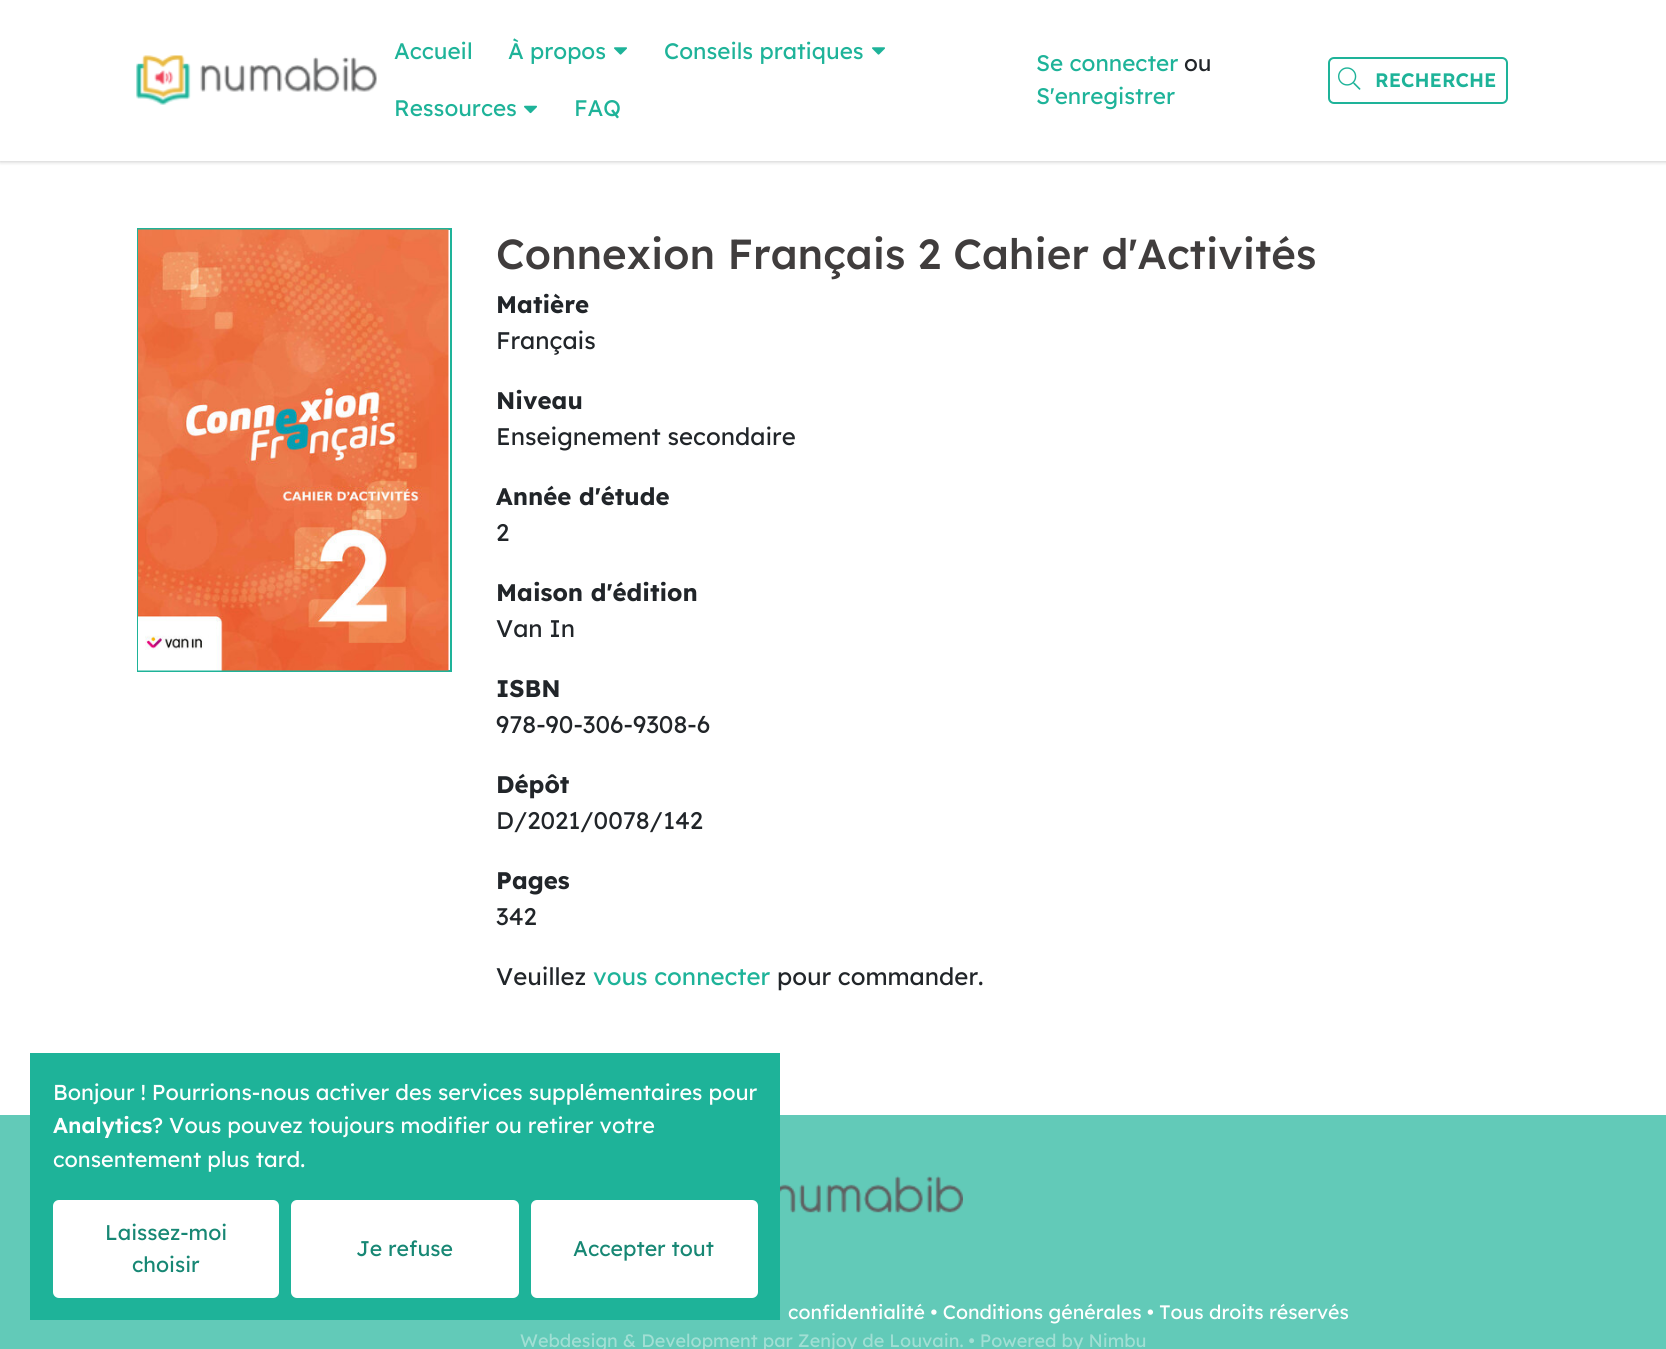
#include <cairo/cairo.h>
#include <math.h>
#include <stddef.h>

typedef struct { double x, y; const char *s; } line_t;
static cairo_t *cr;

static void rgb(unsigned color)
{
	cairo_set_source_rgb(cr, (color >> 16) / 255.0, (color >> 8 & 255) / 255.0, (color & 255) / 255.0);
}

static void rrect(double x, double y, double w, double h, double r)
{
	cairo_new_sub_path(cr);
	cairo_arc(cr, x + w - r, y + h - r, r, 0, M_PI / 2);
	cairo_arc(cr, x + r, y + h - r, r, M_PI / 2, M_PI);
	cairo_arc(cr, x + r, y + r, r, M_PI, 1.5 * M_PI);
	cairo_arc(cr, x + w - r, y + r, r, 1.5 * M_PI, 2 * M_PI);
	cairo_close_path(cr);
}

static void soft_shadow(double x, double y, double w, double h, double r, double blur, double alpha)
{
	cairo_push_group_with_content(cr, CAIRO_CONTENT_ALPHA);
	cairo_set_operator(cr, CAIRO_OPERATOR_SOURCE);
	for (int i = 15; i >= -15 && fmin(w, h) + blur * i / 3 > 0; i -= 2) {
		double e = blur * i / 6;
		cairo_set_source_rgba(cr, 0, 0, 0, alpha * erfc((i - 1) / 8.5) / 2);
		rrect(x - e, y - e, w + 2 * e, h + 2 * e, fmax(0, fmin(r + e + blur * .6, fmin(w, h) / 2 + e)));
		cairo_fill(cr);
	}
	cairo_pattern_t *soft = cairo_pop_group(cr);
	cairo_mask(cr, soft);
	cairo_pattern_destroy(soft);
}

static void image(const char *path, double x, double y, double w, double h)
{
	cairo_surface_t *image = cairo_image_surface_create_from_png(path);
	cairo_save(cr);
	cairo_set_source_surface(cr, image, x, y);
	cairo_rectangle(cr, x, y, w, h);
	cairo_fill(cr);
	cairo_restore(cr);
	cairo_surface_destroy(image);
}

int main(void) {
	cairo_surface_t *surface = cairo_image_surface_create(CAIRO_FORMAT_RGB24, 1666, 1349);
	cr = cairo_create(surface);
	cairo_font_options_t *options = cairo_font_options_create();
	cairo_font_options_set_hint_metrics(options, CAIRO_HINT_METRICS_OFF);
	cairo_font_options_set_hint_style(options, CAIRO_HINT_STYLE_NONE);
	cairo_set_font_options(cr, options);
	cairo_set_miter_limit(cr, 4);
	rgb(0xffffff);
	cairo_paint(cr);
	rgb(0x000000);
	soft_shadow(0, 2, 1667, 160, 0, 2, 0.2);
	rgb(0xffffff);
	cairo_rectangle(cr, 0, 0, 1666, 161);
	cairo_fill(cr);
	image("img/1.png", 136, 55, 241, 50);
	image("img/2.png", 614, 47, 13, 8);
	image("img/2.png", 872, 47, 13, 8);
	image("img/3.png", 524, 105, 13, 9);
	rrect(1329, 58, 178, 45, 5);
	rgb(0x1eb399);
	cairo_stroke(cr);
	image("img/4.png", 1338, 67, 23, 23);
	cairo_rectangle(cr, 138, 229, 313, 442);
	cairo_stroke(cr);
	image("img/5.png", 138, 229, 311, 442);
	rgb(0x62cab8);
	cairo_rectangle(cr, 0, 1115, 1666, 234);
	cairo_fill(cr);
	image("img/6.png", 780, 1175, 183, 38);
	rgb(0x1eb399);
	cairo_rectangle(cr, 30, 1053, 750, 267);
	cairo_fill(cr);
	rgb(0xffffff);
	rrect(54, 1201, 224, 96, 5);
	cairo_fill_preserve(cr);
	cairo_stroke(cr);
	rrect(292, 1201, 226, 96, 5);
	cairo_fill_preserve(cr);
	cairo_stroke(cr);
	rrect(532, 1201, 225, 96, 5);
	cairo_fill_preserve(cr);
	cairo_stroke(cr);
	cairo_select_font_face(cr, "Lexend", CAIRO_FONT_SLANT_NORMAL, CAIRO_FONT_WEIGHT_NORMAL);
	cairo_set_font_size(cr, 22.5);
	rgb(0x1eb399);
	{
		static const line_t items[] = {
			{394, 59, "Accueil"},
			{508, 59, "À propos"},
			{664, 59, "Conseils pratiques"},
			{394, 116, "Ressources"},
			{574, 116, "FAQ"},
			{1036, 71, "Se connecter"},
		};
		for (size_t i = 0; i < sizeof items / sizeof *items; i++) {
			cairo_move_to(cr, items[i].x, items[i].y);
			cairo_show_text(cr, items[i].s);
		}
	}
	rgb(0x212529);
	cairo_move_to(cr, 1184, 71);
	cairo_show_text(cr, "ou");
	rgb(0x1eb399);
	cairo_move_to(cr, 1036, 104);
	cairo_show_text(cr, "S'enregistrer");
	cairo_select_font_face(cr, "Lexend SemiBold", CAIRO_FONT_SLANT_NORMAL, CAIRO_FONT_WEIGHT_NORMAL);
	cairo_set_font_size(cr, 19.5);
	cairo_move_to(cr, 1375, 87);
	cairo_show_text(cr, "RECHERCHE");
	cairo_select_font_face(cr, "Lexend Medium", CAIRO_FONT_SLANT_NORMAL, CAIRO_FONT_WEIGHT_NORMAL);
	cairo_set_font_size(cr, 42);
	rgb(0x403d3d);
	cairo_move_to(cr, 496, 269);
	cairo_show_text(cr, "Connexion Français 2 Cahier d'Activités");
	cairo_select_font_face(cr, "Lexend", CAIRO_FONT_SLANT_NORMAL, CAIRO_FONT_WEIGHT_BOLD);
	cairo_set_font_size(cr, 24);
	rgb(0x212529);
	cairo_move_to(cr, 496, 313);
	cairo_show_text(cr, "Matière");
	cairo_select_font_face(cr, "Lexend", CAIRO_FONT_SLANT_NORMAL, CAIRO_FONT_WEIGHT_NORMAL);
	cairo_move_to(cr, 496, 349);
	cairo_show_text(cr, "Français");
	cairo_select_font_face(cr, "Lexend", CAIRO_FONT_SLANT_NORMAL, CAIRO_FONT_WEIGHT_BOLD);
	cairo_move_to(cr, 496, 409);
	cairo_show_text(cr, "Niveau");
	cairo_select_font_face(cr, "Lexend", CAIRO_FONT_SLANT_NORMAL, CAIRO_FONT_WEIGHT_NORMAL);
	cairo_move_to(cr, 496, 445);
	cairo_show_text(cr, "Enseignement secondaire");
	cairo_select_font_face(cr, "Lexend", CAIRO_FONT_SLANT_NORMAL, CAIRO_FONT_WEIGHT_BOLD);
	cairo_move_to(cr, 496, 505);
	cairo_show_text(cr, "Année d'étude");
	cairo_select_font_face(cr, "Lexend", CAIRO_FONT_SLANT_NORMAL, CAIRO_FONT_WEIGHT_NORMAL);
	cairo_move_to(cr, 496, 541);
	cairo_show_text(cr, "2");
	cairo_select_font_face(cr, "Lexend", CAIRO_FONT_SLANT_NORMAL, CAIRO_FONT_WEIGHT_BOLD);
	cairo_move_to(cr, 496, 601);
	cairo_show_text(cr, "Maison d'édition");
	cairo_select_font_face(cr, "Lexend", CAIRO_FONT_SLANT_NORMAL, CAIRO_FONT_WEIGHT_NORMAL);
	cairo_move_to(cr, 496, 637);
	cairo_show_text(cr, "Van In");
	cairo_select_font_face(cr, "Lexend", CAIRO_FONT_SLANT_NORMAL, CAIRO_FONT_WEIGHT_BOLD);
	cairo_move_to(cr, 496, 697);
	cairo_show_text(cr, "ISBN");
	cairo_select_font_face(cr, "Lexend", CAIRO_FONT_SLANT_NORMAL, CAIRO_FONT_WEIGHT_NORMAL);
	cairo_move_to(cr, 496, 733);
	cairo_show_text(cr, "978-90-306-9308-6");
	cairo_select_font_face(cr, "Lexend", CAIRO_FONT_SLANT_NORMAL, CAIRO_FONT_WEIGHT_BOLD);
	cairo_move_to(cr, 496, 793);
	cairo_show_text(cr, "Dépôt");
	cairo_select_font_face(cr, "Lexend", CAIRO_FONT_SLANT_NORMAL, CAIRO_FONT_WEIGHT_NORMAL);
	cairo_move_to(cr, 496, 829);
	cairo_show_text(cr, "D/2021/0078/142");
	cairo_select_font_face(cr, "Lexend", CAIRO_FONT_SLANT_NORMAL, CAIRO_FONT_WEIGHT_BOLD);
	cairo_move_to(cr, 496, 889);
	cairo_show_text(cr, "Pages");
	cairo_select_font_face(cr, "Lexend", CAIRO_FONT_SLANT_NORMAL, CAIRO_FONT_WEIGHT_NORMAL);
	cairo_move_to(cr, 496, 925);
	cairo_show_text(cr, "342");
	cairo_move_to(cr, 496, 985);
	cairo_show_text(cr, "Veuillez");
	rgb(0x1eb399);
	cairo_move_to(cr, 593, 985);
	cairo_show_text(cr, "vous connecter");
	rgb(0x212529);
	cairo_move_to(cr, 777, 985);
	cairo_show_text(cr, "pour commander.");
	cairo_set_font_size(cr, 19.5);
	rgb(0xffffff);
	cairo_move_to(cr, 788, 1319);
	cairo_show_text(cr, "confidentialité • Conditions générales • Tous droits réservés");
	cairo_set_font_size(cr, 18);
	rgb(0xa1dfd4);
	cairo_move_to(cr, 520, 1347);
	cairo_show_text(cr, "Webdesign & Development par Zenjoy de Louvain. • Powered by Nimbu");
	cairo_set_font_size(cr, 21.6);
	rgb(0xffffff);
	cairo_move_to(cr, 53, 1100);
	cairo_show_text(cr, "Bonjour ! Pourrions-nous activer des services supplémentaires pour");
	cairo_select_font_face(cr, "Lexend SemiBold", CAIRO_FONT_SLANT_NORMAL, CAIRO_FONT_WEIGHT_NORMAL);
	cairo_move_to(cr, 53, 1133);
	cairo_show_text(cr, "Analytics");
	cairo_select_font_face(cr, "Lexend", CAIRO_FONT_SLANT_NORMAL, CAIRO_FONT_WEIGHT_NORMAL);
	cairo_move_to(cr, 152, 1133);
	cairo_show_text(cr, "? Vous pouvez toujours modifier ou retirer votre");
	cairo_move_to(cr, 53, 1167);
	cairo_show_text(cr, "consentement plus tard.");
	cairo_set_font_size(cr, 21.25);
	rgb(0x178774);
	{
		static const line_t items[] = {
			{105, 1240, "Laissez-moi"},
			{132, 1272, "choisir"},
			{356, 1256, "Je refuse"},
			{573, 1256, "Accepter tout"},
		};
		for (size_t i = 0; i < sizeof items / sizeof *items; i++) {
			cairo_move_to(cr, items[i].x, items[i].y);
			cairo_show_text(cr, items[i].s);
		}
	}
	cairo_surface_write_to_png(surface, "page.png");
	cairo_font_options_destroy(options);
	cairo_destroy(cr);
	cairo_surface_destroy(surface);
	return 0;
}
